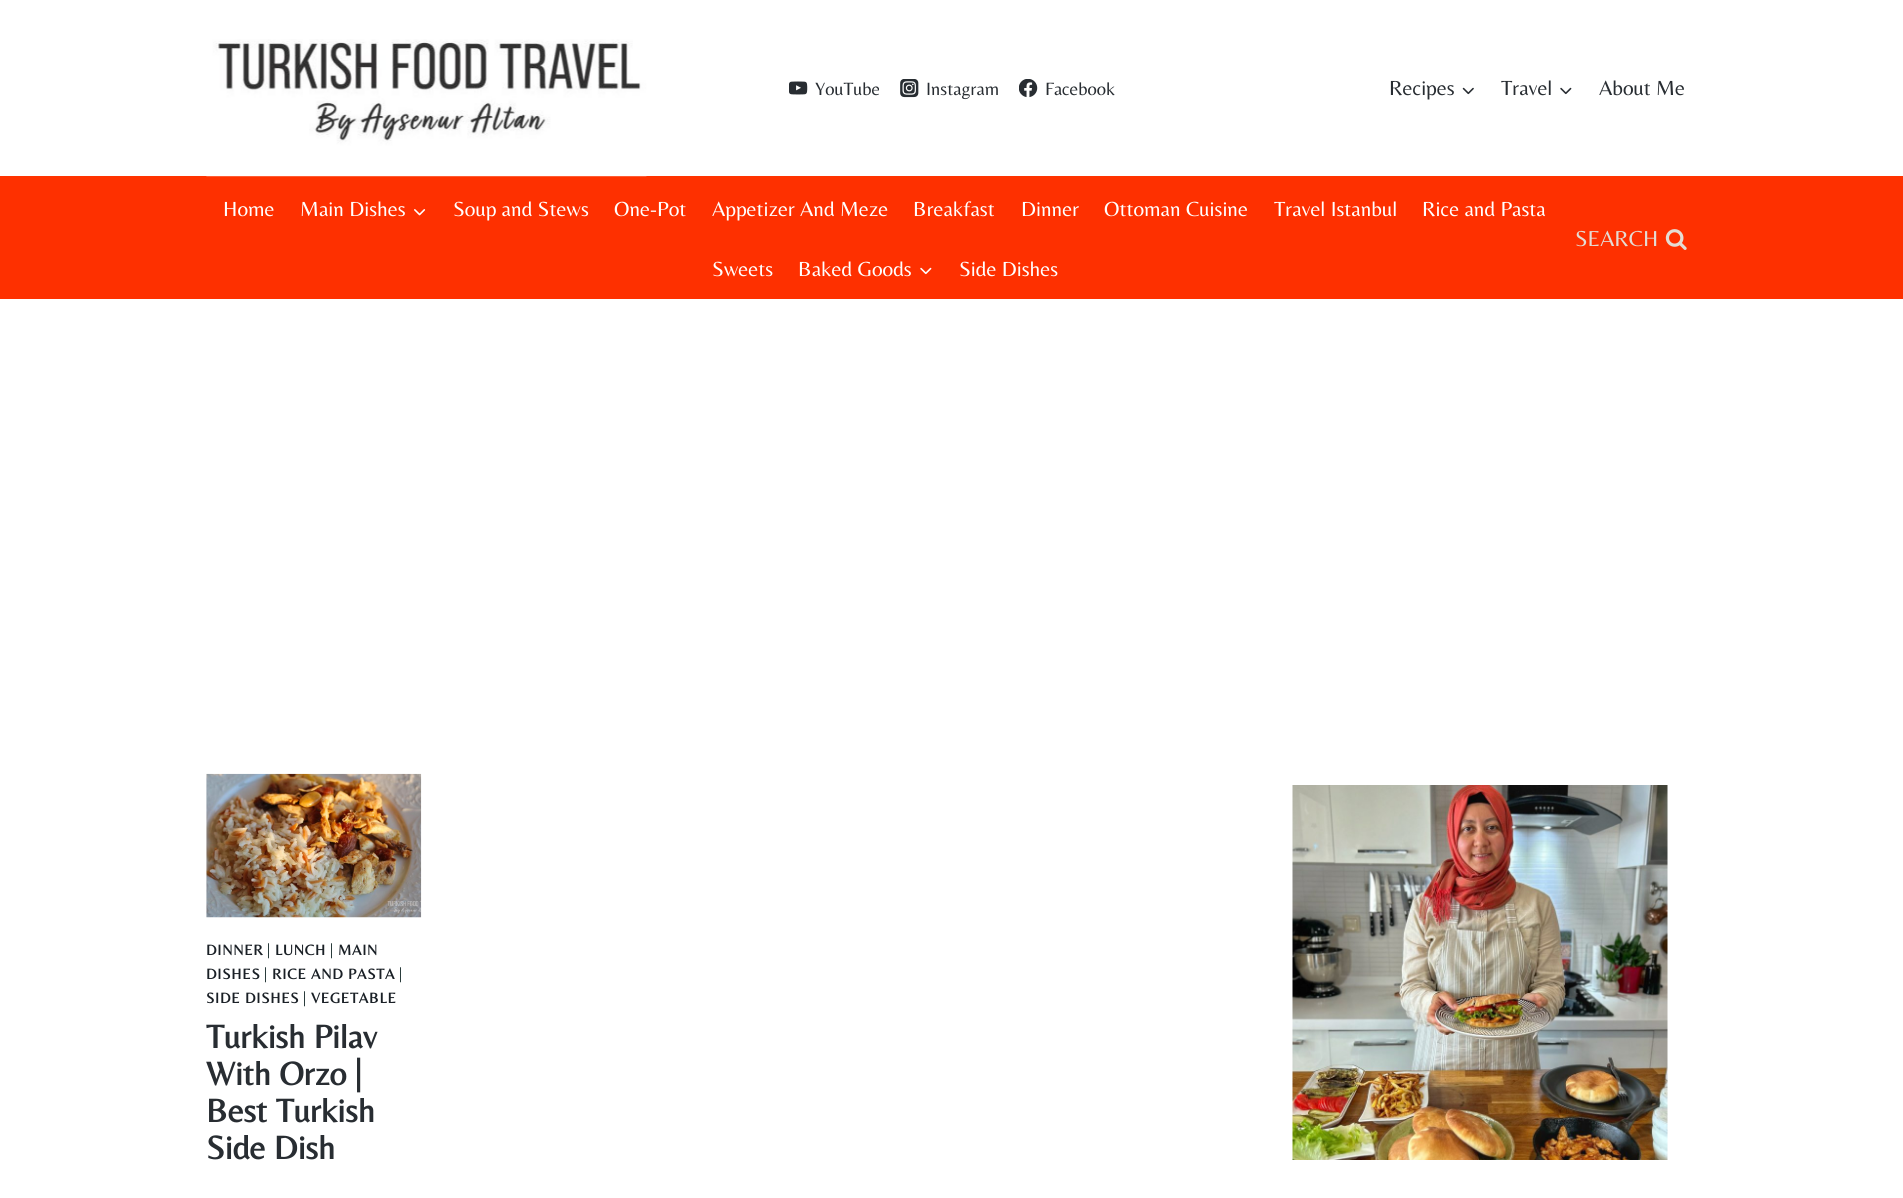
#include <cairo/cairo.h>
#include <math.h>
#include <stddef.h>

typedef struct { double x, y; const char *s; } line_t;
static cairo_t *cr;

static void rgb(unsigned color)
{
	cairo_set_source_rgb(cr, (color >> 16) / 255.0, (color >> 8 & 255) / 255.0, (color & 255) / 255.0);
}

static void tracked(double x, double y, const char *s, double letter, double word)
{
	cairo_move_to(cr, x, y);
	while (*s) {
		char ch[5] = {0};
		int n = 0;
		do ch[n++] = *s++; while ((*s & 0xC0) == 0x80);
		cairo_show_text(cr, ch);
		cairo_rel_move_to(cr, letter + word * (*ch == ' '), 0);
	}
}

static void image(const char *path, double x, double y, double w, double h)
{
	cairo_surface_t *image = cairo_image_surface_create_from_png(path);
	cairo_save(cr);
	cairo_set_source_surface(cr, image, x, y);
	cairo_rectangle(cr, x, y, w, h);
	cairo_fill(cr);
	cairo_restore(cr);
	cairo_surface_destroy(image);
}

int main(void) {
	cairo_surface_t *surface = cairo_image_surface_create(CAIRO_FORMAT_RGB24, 1903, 1198);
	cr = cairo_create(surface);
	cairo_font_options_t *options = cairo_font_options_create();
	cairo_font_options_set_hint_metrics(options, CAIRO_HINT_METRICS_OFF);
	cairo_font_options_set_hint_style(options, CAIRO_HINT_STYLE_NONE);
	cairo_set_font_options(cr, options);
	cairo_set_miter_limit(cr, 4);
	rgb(0xffffff);
	cairo_paint(cr);
	rgb(0xff3300);
	cairo_rectangle(cr, 0, 176, 1903, 4);
	cairo_fill(cr);
	image("img/1.png", 206, 39, 441, 138);
	image("img/2.png", 789, 81, 19, 14);
	image("img/3.png", 900, 79, 19, 19);
	image("img/4.png", 1019, 79, 19, 19);
	image("img/5.png", 1462, 87, 12, 8);
	image("img/6.png", 1560, 87, 12, 8);
	rgb(0xfe3000);
	cairo_rectangle(cr, 0, 180, 1903, 119);
	cairo_fill(cr);
	image("img/7.png", 414, 209, 12, 7);
	image("img/8.png", 920, 267, 12, 8);
	image("img/9.png", 1665, 229, 22, 21);
	image("img/10.png", 206, 773, 216, 145);
	image("img/11.png", 1292, 785, 376, 375);
	cairo_select_font_face(cr, "Belleza", CAIRO_FONT_SLANT_NORMAL, CAIRO_FONT_WEIGHT_NORMAL);
	cairo_set_font_size(cr, 18.5);
	rgb(0x282d32);
	{
		static const line_t items[] = {
			{815, 95, "YouTube"},
			{926, 95, "Instagram"},
			{1045, 95, "Facebook"},
		};
		for (size_t i = 0; i < sizeof items / sizeof *items; i++) {
			cairo_move_to(cr, items[i].x, items[i].y);
			cairo_show_text(cr, items[i].s);
		}
	}
	cairo_set_font_size(cr, 21.25);
	{
		static const line_t items[] = {
			{1389, 95, "Recipes"},
			{1501, 95, "Travel"},
			{1599, 95, "About Me"},
		};
		for (size_t i = 0; i < sizeof items / sizeof *items; i++) {
			cairo_move_to(cr, items[i].x, items[i].y);
			cairo_show_text(cr, items[i].s);
		}
	}
	rgb(0xffffff);
	{
		static const line_t items[] = {
			{223, 216, "Home"},
			{300, 216, "Main Dishes"},
			{453, 216, "Soup and Stews"},
			{614, 216, "One-Pot"},
			{712, 216, "Appetizer And Meze"},
			{913, 216, "Breakfast"},
			{1021, 216, "Dinner"},
			{1104, 216, "Ottoman Cuisine"},
			{1274, 216, "Travel Istanbul"},
			{1422, 216, "Rice and Pasta"},
			{712, 276, "Sweets"},
			{798, 276, "Baked Goods"},
			{959, 276, "Side Dishes"},
		};
		for (size_t i = 0; i < sizeof items / sizeof *items; i++) {
			cairo_move_to(cr, items[i].x, items[i].y);
			cairo_show_text(cr, items[i].s);
		}
	}
	cairo_set_font_size(cr, 22.5);
	rgb(0xe4dcd4);
	cairo_move_to(cr, 1575, 246);
	cairo_show_text(cr, "SEARCH");
	cairo_select_font_face(cr, "Belleza", CAIRO_FONT_SLANT_NORMAL, CAIRO_FONT_WEIGHT_BOLD);
	cairo_set_font_size(cr, 15);
	rgb(0x1a2026);
	tracked(206, 955, "DINNER", 0.75, 0);
	cairo_select_font_face(cr, "Belleza", CAIRO_FONT_SLANT_NORMAL, CAIRO_FONT_WEIGHT_NORMAL);
	rgb(0x2a3c3c);
	tracked(267, 955, "|", 0.75, 0);
	cairo_select_font_face(cr, "Belleza", CAIRO_FONT_SLANT_NORMAL, CAIRO_FONT_WEIGHT_BOLD);
	rgb(0x1a2026);
	tracked(275, 955, "LUNCH", 0.75, 0);
	cairo_select_font_face(cr, "Belleza", CAIRO_FONT_SLANT_NORMAL, CAIRO_FONT_WEIGHT_NORMAL);
	rgb(0x2a3c3c);
	tracked(330, 955, "|", 0.75, 0);
	cairo_select_font_face(cr, "Belleza", CAIRO_FONT_SLANT_NORMAL, CAIRO_FONT_WEIGHT_BOLD);
	rgb(0x1a2026);
	tracked(338, 955, "MAIN", 0.75, 0);
	tracked(206, 979, "DISHES", 0.75, 0);
	cairo_select_font_face(cr, "Belleza", CAIRO_FONT_SLANT_NORMAL, CAIRO_FONT_WEIGHT_NORMAL);
	rgb(0x2a3c3c);
	tracked(264, 979, "|", 0.75, 0);
	cairo_select_font_face(cr, "Belleza", CAIRO_FONT_SLANT_NORMAL, CAIRO_FONT_WEIGHT_BOLD);
	rgb(0x1a2026);
	tracked(272, 979, "RICE AND PASTA", 0.75, 0);
	cairo_select_font_face(cr, "Belleza", CAIRO_FONT_SLANT_NORMAL, CAIRO_FONT_WEIGHT_NORMAL);
	rgb(0x2a3c3c);
	tracked(399, 979, "|", 0.75, 0);
	cairo_select_font_face(cr, "Belleza", CAIRO_FONT_SLANT_NORMAL, CAIRO_FONT_WEIGHT_BOLD);
	rgb(0x1a2026);
	tracked(206, 1003, "SIDE DISHES", 0.75, 0);
	cairo_select_font_face(cr, "Belleza", CAIRO_FONT_SLANT_NORMAL, CAIRO_FONT_WEIGHT_NORMAL);
	rgb(0x2a3c3c);
	tracked(303, 1003, "|", 0.75, 0);
	cairo_select_font_face(cr, "Belleza", CAIRO_FONT_SLANT_NORMAL, CAIRO_FONT_WEIGHT_BOLD);
	rgb(0x1a2026);
	tracked(311, 1003, "VEGETABLE", 0.75, 0);
	cairo_set_font_size(cr, 33.75);
	rgb(0x282d32);
	{
		static const line_t items[] = {
			{206, 1048, "Turkish Pilav"},
			{206, 1085, "With Orzo |"},
			{206, 1122, "Best Turkish"},
			{206, 1159, "Side Dish"},
		};
		for (size_t i = 0; i < sizeof items / sizeof *items; i++) {
			cairo_move_to(cr, items[i].x, items[i].y);
			cairo_show_text(cr, items[i].s);
		}
	}
	cairo_surface_write_to_png(surface, "page.png");
	cairo_font_options_destroy(options);
	cairo_destroy(cr);
	cairo_surface_destroy(surface);
	return 0;
}
